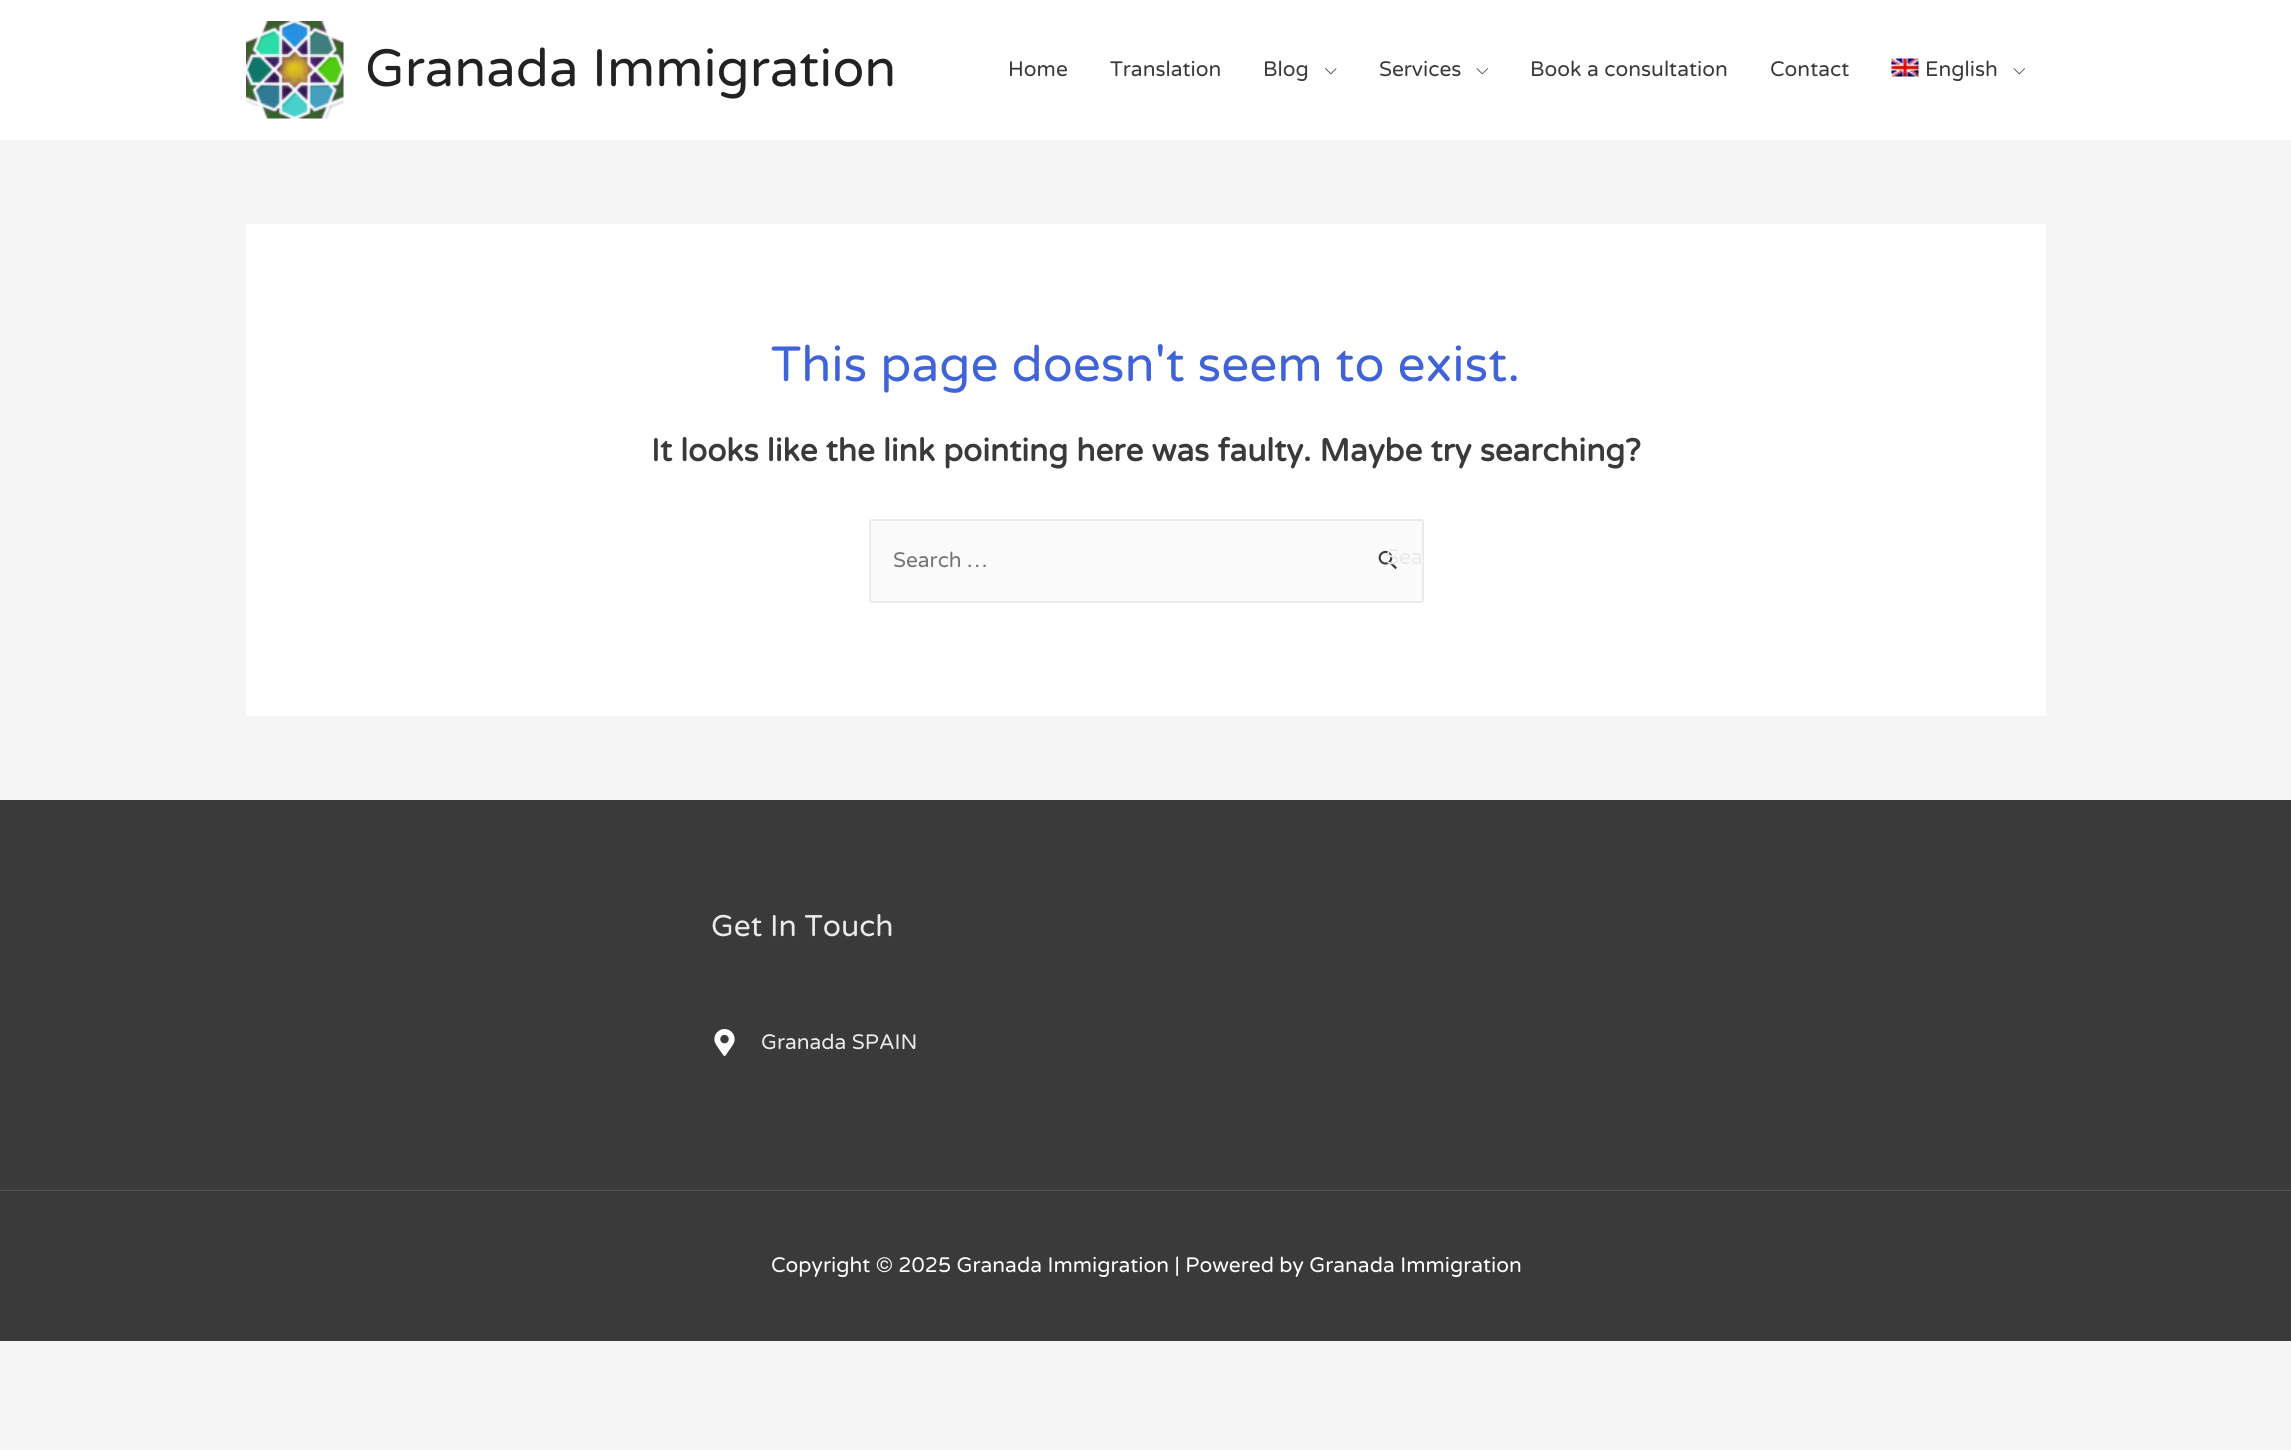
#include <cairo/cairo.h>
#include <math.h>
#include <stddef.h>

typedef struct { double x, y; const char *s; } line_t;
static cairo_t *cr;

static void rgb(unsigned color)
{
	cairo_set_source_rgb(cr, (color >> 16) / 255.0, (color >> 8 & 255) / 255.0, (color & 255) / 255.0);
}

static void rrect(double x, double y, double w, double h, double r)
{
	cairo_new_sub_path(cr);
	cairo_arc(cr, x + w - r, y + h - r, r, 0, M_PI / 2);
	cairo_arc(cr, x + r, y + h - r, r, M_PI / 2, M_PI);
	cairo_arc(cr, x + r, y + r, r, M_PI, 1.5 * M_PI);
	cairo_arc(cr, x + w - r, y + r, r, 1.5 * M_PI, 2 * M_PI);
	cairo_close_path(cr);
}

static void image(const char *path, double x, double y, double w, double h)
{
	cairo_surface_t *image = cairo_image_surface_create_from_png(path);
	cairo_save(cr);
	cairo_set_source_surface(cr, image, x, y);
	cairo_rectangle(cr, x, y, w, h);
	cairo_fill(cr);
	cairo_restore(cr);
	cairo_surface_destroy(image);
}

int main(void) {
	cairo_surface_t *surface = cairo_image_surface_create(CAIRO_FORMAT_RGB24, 2291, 1450);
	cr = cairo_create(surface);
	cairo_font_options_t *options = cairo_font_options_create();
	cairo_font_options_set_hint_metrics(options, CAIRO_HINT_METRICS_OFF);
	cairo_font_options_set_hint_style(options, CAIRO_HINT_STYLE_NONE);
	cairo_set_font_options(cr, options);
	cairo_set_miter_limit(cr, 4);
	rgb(0xf5f5f5);
	cairo_paint(cr);
	rgb(0xffffff);
	cairo_rectangle(cr, 0, 0, 2291, 140);
	cairo_fill(cr);
	image("img/1.png", 246, 21, 98, 98);
	image("img/2.png", 1325, 68, 12, 7);
	image("img/3.png", 1476, 68, 12, 7);
	image("img/4.png", 1891, 58, 28, 19);
	image("img/3.png", 2013, 68, 12, 7);
	cairo_rectangle(cr, 246, 224, 1800, 492);
	cairo_fill(cr);
	rgb(0xfafafa);
	rrect(870, 520, 553, 82, 2);
	cairo_fill_preserve(cr);
	rgb(0xeaeaea);
	cairo_stroke(cr);
	image("img/5.png", 1378, 550, 19, 20);
	rgb(0x3a3a3a);
	cairo_rectangle(cr, 0, 800, 2291, 390);
	cairo_fill(cr);
	image("img/6.png", 714, 1029, 21, 27);
	rgb(0x545454);
	cairo_rectangle(cr, 0, 1190, 2291, 1);
	cairo_fill(cr);
	rgb(0x3a3a3a);
	cairo_rectangle(cr, 0, 1191, 2291, 150);
	cairo_fill(cr);
	cairo_select_font_face(cr, "Varela Round", CAIRO_FONT_SLANT_NORMAL, CAIRO_FONT_WEIGHT_NORMAL);
	cairo_set_font_size(cr, 52.5);
	rgb(0x222222);
	cairo_move_to(cr, 365, 86);
	cairo_show_text(cr, "Granada Immigration");
	cairo_set_font_size(cr, 21);
	rgb(0x3a3a3a);
	{
		static const line_t items[] = {
			{1008, 76, "Home"},
			{1110, 76, "Translation"},
			{1263, 76, "Blog"},
			{1379, 76, "Services"},
			{1530, 76, "Book a consultation"},
			{1770, 76, "Contact"},
			{1925, 76, "English"},
		};
		for (size_t i = 0; i < sizeof items / sizeof *items; i++) {
			cairo_move_to(cr, items[i].x, items[i].y);
			cairo_show_text(cr, items[i].s);
		}
	}
	cairo_set_font_size(cr, 49.5);
	rgb(0x4064d7);
	cairo_move_to(cr, 771, 381);
	cairo_show_text(cr, "This page doesn't seem to exist.");
	cairo_select_font_face(cr, "Varela Round", CAIRO_FONT_SLANT_NORMAL, CAIRO_FONT_WEIGHT_BOLD);
	cairo_set_font_size(cr, 31.5);
	rgb(0x3a3a3a);
	cairo_move_to(cr, 651, 461);
	cairo_show_text(cr, "It looks like the link pointing here was faulty. Maybe try searching?");
	cairo_select_font_face(cr, "Varela Round", CAIRO_FONT_SLANT_NORMAL, CAIRO_FONT_WEIGHT_NORMAL);
	cairo_set_font_size(cr, 21);
	rgb(0xeaeaea);
	cairo_move_to(cr, 1386, 564);
	cairo_show_text(cr, "Sea");
	rgb(0x757575);
	cairo_move_to(cr, 893, 567);
	cairo_show_text(cr, "Search …");
	cairo_set_font_size(cr, 30);
	rgb(0xeaeaea);
	cairo_move_to(cr, 711, 936);
	cairo_show_text(cr, "Get In Touch");
	cairo_set_font_size(cr, 21);
	cairo_move_to(cr, 761, 1049);
	cairo_show_text(cr, "Granada SPAIN");
	rgb(0xffffff);
	cairo_move_to(cr, 771, 1272);
	cairo_show_text(cr, "Copyright © 2025 Granada Immigration | Powered by Granada Immigration");
	cairo_surface_write_to_png(surface, "page.png");
	cairo_font_options_destroy(options);
	cairo_destroy(cr);
	cairo_surface_destroy(surface);
	return 0;
}
